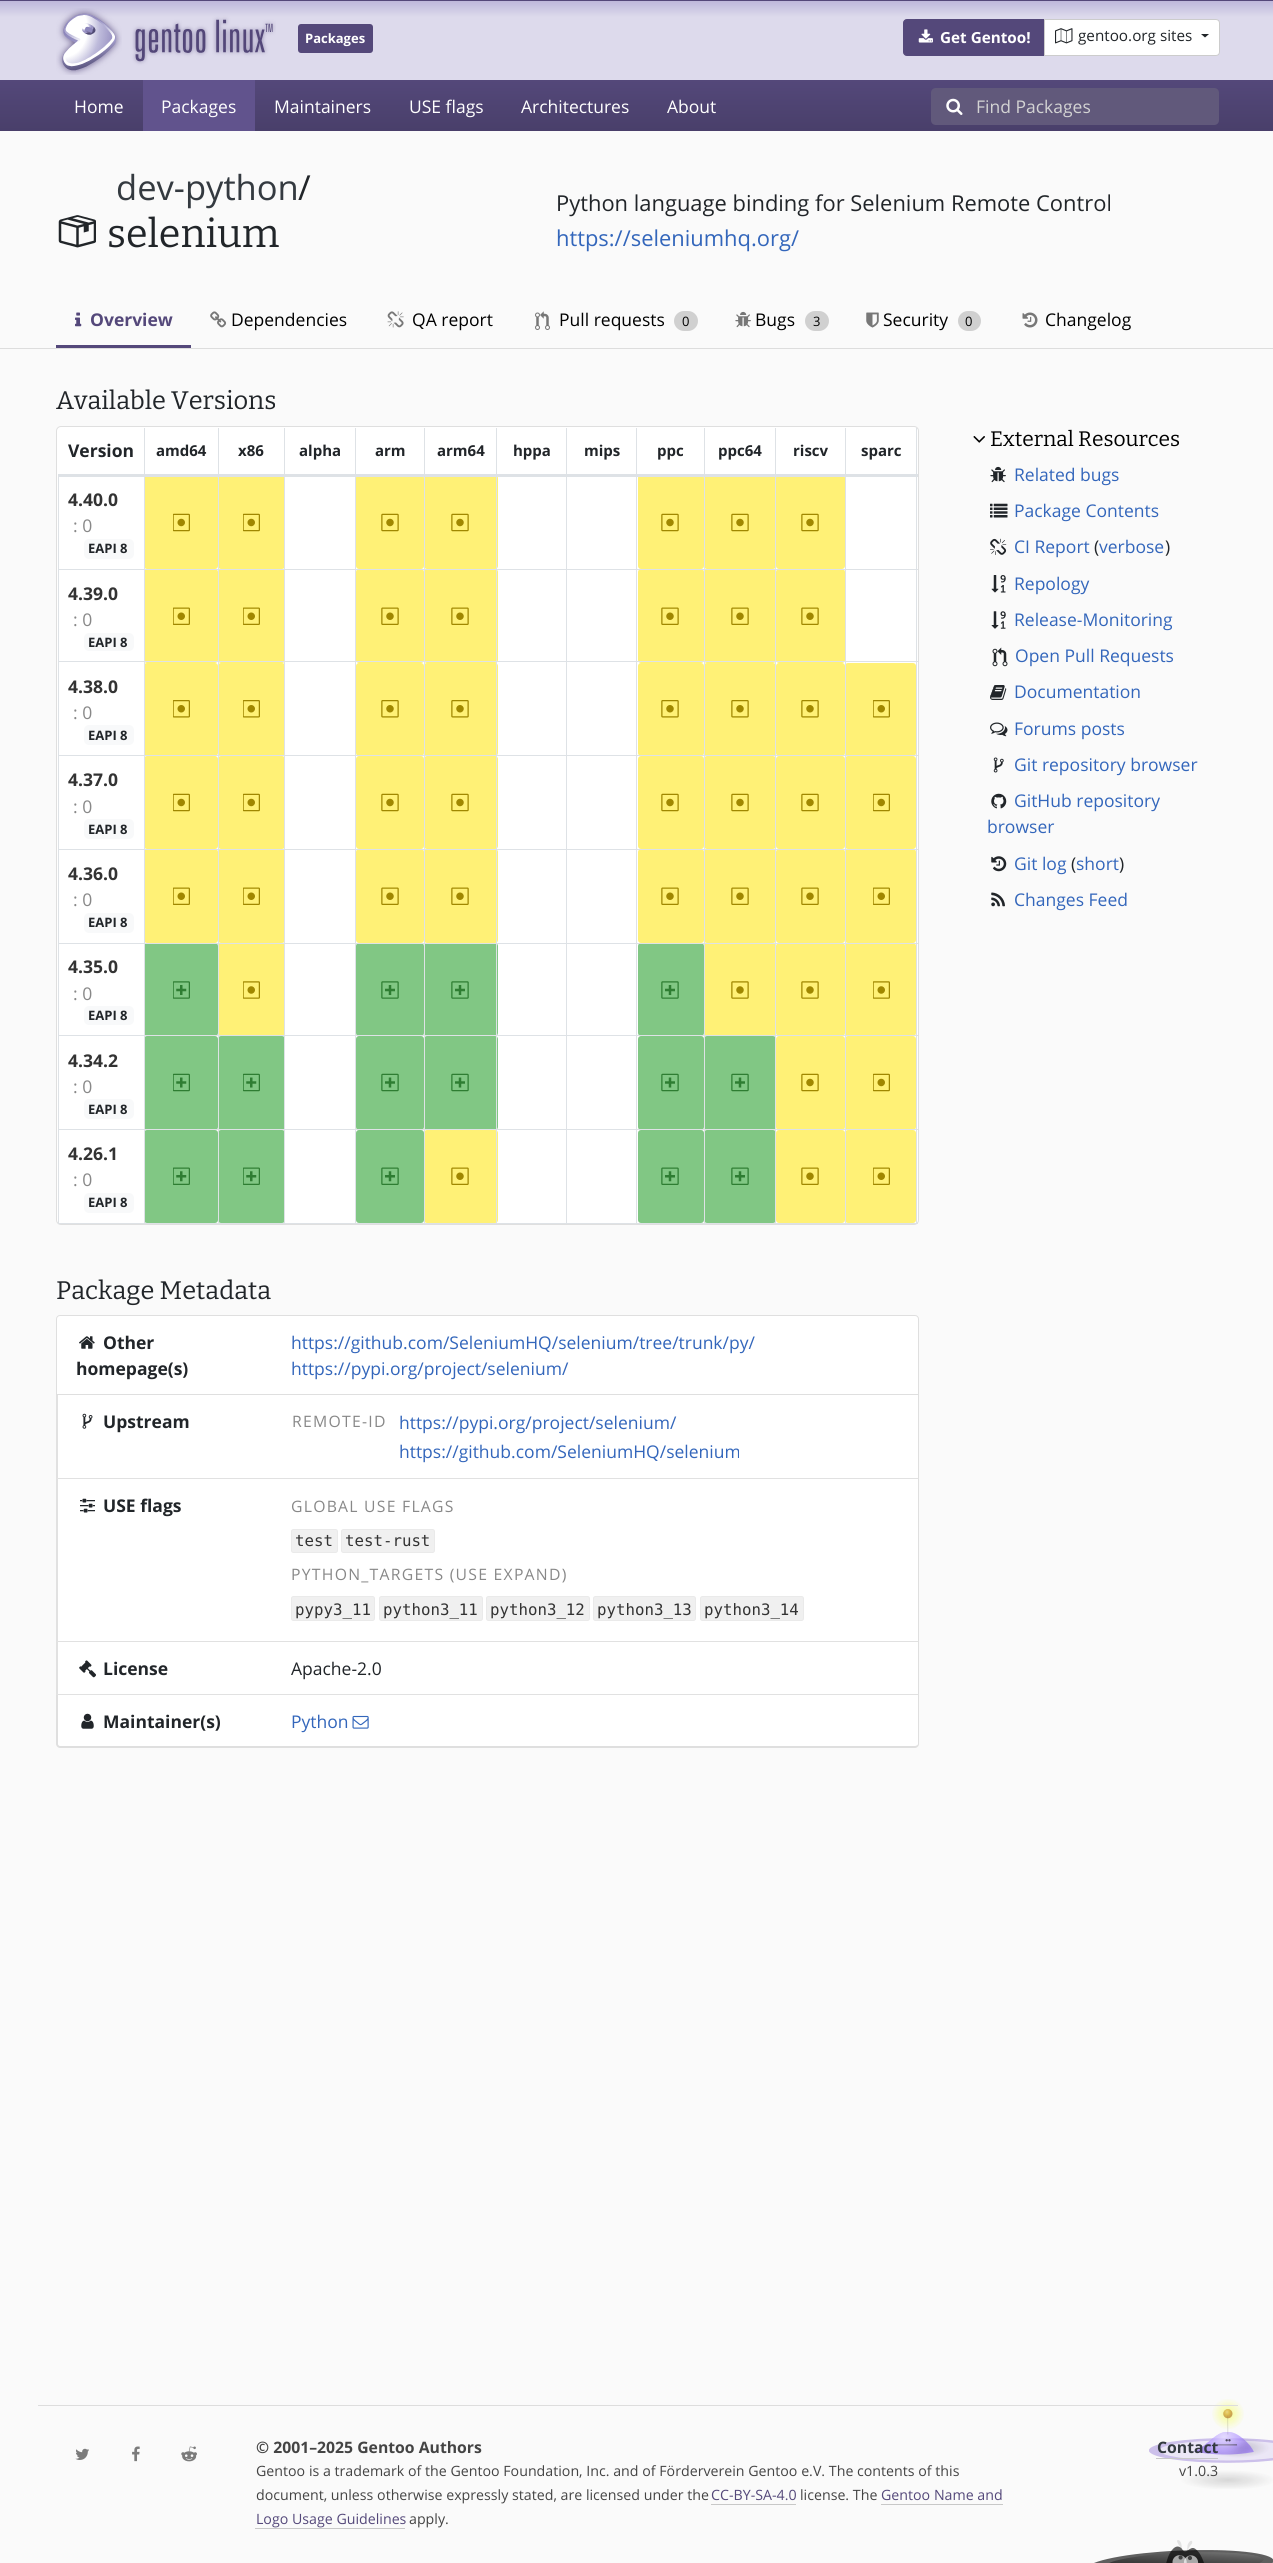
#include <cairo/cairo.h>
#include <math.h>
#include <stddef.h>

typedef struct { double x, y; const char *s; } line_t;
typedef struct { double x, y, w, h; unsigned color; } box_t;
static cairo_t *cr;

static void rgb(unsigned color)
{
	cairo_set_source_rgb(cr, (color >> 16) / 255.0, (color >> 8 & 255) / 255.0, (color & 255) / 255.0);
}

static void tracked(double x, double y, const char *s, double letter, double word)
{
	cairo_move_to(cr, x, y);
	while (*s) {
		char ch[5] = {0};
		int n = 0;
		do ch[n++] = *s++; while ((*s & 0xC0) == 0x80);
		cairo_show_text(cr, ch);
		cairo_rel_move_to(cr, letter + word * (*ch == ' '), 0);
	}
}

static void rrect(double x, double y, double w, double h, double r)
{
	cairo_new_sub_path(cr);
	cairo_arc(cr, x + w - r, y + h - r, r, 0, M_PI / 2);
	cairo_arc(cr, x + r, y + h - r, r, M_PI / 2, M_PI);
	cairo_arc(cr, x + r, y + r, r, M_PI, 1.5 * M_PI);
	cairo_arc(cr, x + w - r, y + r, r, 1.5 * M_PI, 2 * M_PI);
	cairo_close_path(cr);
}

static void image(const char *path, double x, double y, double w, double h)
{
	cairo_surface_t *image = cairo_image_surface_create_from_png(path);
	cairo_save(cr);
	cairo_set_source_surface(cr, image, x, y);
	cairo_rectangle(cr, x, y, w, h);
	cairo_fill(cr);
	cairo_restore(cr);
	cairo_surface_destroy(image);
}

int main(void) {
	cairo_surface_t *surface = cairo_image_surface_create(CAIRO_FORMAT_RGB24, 1273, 2563);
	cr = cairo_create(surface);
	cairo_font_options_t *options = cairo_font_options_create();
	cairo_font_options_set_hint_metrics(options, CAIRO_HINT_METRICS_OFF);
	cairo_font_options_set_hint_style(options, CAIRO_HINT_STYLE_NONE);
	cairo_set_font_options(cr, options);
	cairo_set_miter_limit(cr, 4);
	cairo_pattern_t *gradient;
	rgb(0xfafafa);
	cairo_paint(cr);
	rgb(0x54487a);
	cairo_rectangle(cr, 0, 0, 1273, 1);
	cairo_fill(cr);
	gradient = cairo_pattern_create_linear(637, 1.2, 637, 80);
	cairo_pattern_add_color_stop_rgba(gradient, 0, 0.745, 0.722, 0.859, 1);
	cairo_pattern_add_color_stop_rgba(gradient, 0.2, 0.867, 0.855, 0.925, 1);
	cairo_set_source(cr, gradient);
	cairo_pattern_destroy(gradient);
	cairo_rectangle(cr, 0, 1, 1273, 79);
	cairo_fill(cr);
	image("img/1.png", 56, 8, 220, 67);
	rgb(0x54487a);
	rrect(298, 24, 75, 29, 3);
	cairo_fill(cr);
	cairo_new_path(cr);
	cairo_move_to(cr, 907, 19.5);
	cairo_line_to(cr, 1044.5, 19.5);
	cairo_line_to(cr, 1044.5, 55.5);
	cairo_line_to(cr, 907, 55.5);
	cairo_curve_to(cr, 905, 55.5, 903.5, 54, 903.5, 52);
	cairo_line_to(cr, 903.5, 23);
	cairo_curve_to(cr, 903.5, 21, 905, 19.5, 907, 19.5);
	cairo_close_path(cr);
	cairo_fill_preserve(cr);
	cairo_set_line_width(cr, 1);
	cairo_stroke(cr);
	image("img/2.png", 918, 29, 15, 14);
	rgb(0xffffff);
	cairo_new_path(cr);
	cairo_move_to(cr, 1044.5, 19.5);
	cairo_line_to(cr, 1216, 19.5);
	cairo_curve_to(cr, 1218, 19.5, 1219.5, 21, 1219.5, 23);
	cairo_line_to(cr, 1219.5, 52);
	cairo_curve_to(cr, 1219.5, 54, 1218, 55.5, 1216, 55.5);
	cairo_line_to(cr, 1044.5, 55.5);
	cairo_close_path(cr);
	cairo_fill_preserve(cr);
	rgb(0xcccccc);
	cairo_stroke(cr);
	image("img/3.png", 1055, 28, 18, 16);
	rgb(0x212529);
	cairo_new_path(cr);
	cairo_move_to(cr, 1201, 34);
	cairo_line_to(cr, 1209, 34);
	cairo_line_to(cr, 1205, 37.5);
	cairo_close_path(cr);
	cairo_fill(cr);
	gradient = cairo_pattern_create_linear(637, 80, 637, 131);
	cairo_pattern_add_color_stop_rgba(gradient, 0, 0.329, 0.282, 0.478, 1);
	cairo_pattern_add_color_stop_rgba(gradient, 1, 0.286, 0.247, 0.416, 1);
	cairo_set_source(cr, gradient);
	cairo_pattern_destroy(gradient);
	cairo_rectangle(cr, 0, 80, 1273, 51);
	cairo_fill(cr);
	rgb(0x61538d);
	cairo_rectangle(cr, 143, 80, 112, 51);
	cairo_fill(cr);
	rgb(0x61597b);
	cairo_new_path(cr);
	cairo_move_to(cr, 936, 88);
	cairo_line_to(cr, 978, 88);
	cairo_line_to(cr, 978, 125);
	cairo_line_to(cr, 936, 125);
	cairo_curve_to(cr, 933, 125, 931, 123, 931, 120);
	cairo_line_to(cr, 931, 93);
	cairo_curve_to(cr, 931, 90, 933, 88, 936, 88);
	cairo_close_path(cr);
	cairo_fill(cr);
	image("img/4.png", 946, 98, 17, 17);
	cairo_new_path(cr);
	cairo_move_to(cr, 976, 88);
	cairo_line_to(cr, 1214, 88);
	cairo_curve_to(cr, 1217, 88, 1219, 90, 1219, 93);
	cairo_line_to(cr, 1219, 120);
	cairo_curve_to(cr, 1219, 123, 1217, 125, 1214, 125);
	cairo_line_to(cr, 976, 125);
	cairo_close_path(cr);
	cairo_fill(cr);
	image("img/5.png", 58, 215, 38, 33);
	rgb(0x54487a);
	cairo_rectangle(cr, 56, 345, 135, 3);
	cairo_fill(cr);
	image("img/6.png", 75, 312, 7, 15);
	image("img/7.png", 210, 311, 17, 17);
	image("img/8.png", 387, 311, 17, 17);
	image("img/9.png", 535, 311, 15, 19);
	rgb(0xd0d0d0);
	rrect(674, 311, 24, 20, 10);
	cairo_fill(cr);
	image("img/10.png", 735, 311, 16, 17);
	rrect(805, 311, 24, 20, 10);
	cairo_fill(cr);
	image("img/11.png", 866, 312, 13, 16);
	rrect(958, 311, 23, 20, 10);
	cairo_fill(cr);
	image("img/12.png", 1022, 312, 16, 16);
	rgb(0xdddddd);
	cairo_rectangle(cr, 0, 348, 1273, 1);
	cairo_fill(cr);
	rgb(0xffffff);
	rrect(56.5, 426.5, 862, 798, 4.5);
	cairo_fill_preserve(cr);
	rgb(0xdfdfdf);
	cairo_stroke(cr);
	rgb(0xfff176);
	rrect(144, 475, 74, 94, 3);
	cairo_fill(cr);
	rrect(144, 569, 74, 94, 3);
	cairo_fill(cr);
	rrect(218, 569, 67, 94, 3);
	cairo_fill(cr);
	rrect(356, 569, 68, 94, 3);
	cairo_fill(cr);
	rrect(424, 569, 74, 94, 3);
	cairo_fill(cr);
	rrect(638, 569, 66, 94, 3);
	cairo_fill(cr);
	rrect(704, 569, 72, 94, 3);
	cairo_fill(cr);
	rrect(776, 569, 69, 94, 3);
	cairo_fill(cr);
	rgb(0xdee2e6);
	cairo_rectangle(cr, 845, 569, 73, 1);
	cairo_fill(cr);
	cairo_rectangle(cr, 845, 661, 73, 1);
	cairo_fill(cr);
	rgb(0xfff176);
	rrect(845, 663, 71, 93, 3);
	cairo_fill(cr);
	rrect(704, 663, 72, 93, 3);
	cairo_fill(cr);
	rrect(776, 663, 69, 93, 3);
	cairo_fill(cr);
	rgb(0xdee2e6);
	cairo_rectangle(cr, 845, 755, 73, 1);
	cairo_fill(cr);
	rgb(0xfff176);
	rrect(845, 756, 71, 93, 3);
	cairo_fill(cr);
	rrect(704, 849, 72, 94, 3);
	cairo_fill(cr);
	rrect(776, 849, 69, 94, 3);
	cairo_fill(cr);
	rrect(845, 849, 71, 94, 3);
	cairo_fill(cr);
	rgb(0xdee2e6);
	cairo_rectangle(cr, 845, 849, 73, 1);
	cairo_fill(cr);
	rgb(0xfff176);
	rrect(776, 943, 69, 93, 3);
	cairo_fill(cr);
	rrect(845, 943, 71, 93, 3);
	cairo_fill(cr);
	rgb(0xdee2e6);
	cairo_rectangle(cr, 845, 943, 73, 1);
	cairo_fill(cr);
	cairo_rectangle(cr, 845, 1035, 73, 1);
	cairo_fill(cr);
	rgb(0xfff176);
	rrect(845, 1036, 71, 94, 3);
	cairo_fill(cr);
	rgb(0x81c784);
	rrect(704, 1036, 72, 94, 3);
	cairo_fill(cr);
	rgb(0xfff176);
	rrect(776, 1036, 69, 94, 3);
	cairo_fill(cr);
	rgb(0xdee2e6);
	cairo_rectangle(cr, 845, 1129, 73, 1);
	cairo_fill(cr);
	rgb(0xfff176);
	rrect(845, 1130, 71, 93, 3);
	cairo_fill(cr);
	{
		static const box_t items[] = {
			{916, 1129, 1, 95, 0xdee2e6},
			{845, 1223, 73, 1, 0xdee2e6},
			{845, 1129, 1, 95, 0xdee2e6},
			{775, 1129, 71, 1, 0xdee2e6},
			{845, 1035, 1, 95, 0xdee2e6},
			{775, 1035, 71, 1, 0xdee2e6},
			{845, 943, 1, 93, 0xdee2e6},
			{775, 943, 71, 1, 0xdee2e6},
			{845, 849, 1, 95, 0xdee2e6},
			{775, 849, 71, 1, 0xdee2e6},
			{845, 755, 1, 95, 0xdee2e6},
			{775, 755, 71, 1, 0xdee2e6},
			{845, 661, 1, 95, 0xdee2e6},
			{775, 661, 71, 1, 0xdee2e6},
			{845, 569, 1, 94, 0xdee2e6},
			{775, 569, 71, 1, 0xdee2e6},
		};
		for (size_t i = 0; i < sizeof items / sizeof *items; i++) {
			rgb(items[i].color);
			cairo_rectangle(cr, items[i].x, items[i].y, items[i].w, items[i].h);
			cairo_fill(cr);
		}
	}
	rgb(0xfff176);
	rrect(704, 756, 72, 93, 3);
	cairo_fill(cr);
	rgb(0x81c784);
	rrect(704, 1130, 72, 93, 3);
	cairo_fill(cr);
	{
		static const box_t items[] = {
			{775, 1223, 71, 1, 0xdee2e6},
			{775, 1129, 1, 95, 0xdee2e6},
			{704, 1129, 72, 1, 0xdee2e6},
			{775, 1035, 1, 95, 0xdee2e6},
			{704, 1035, 72, 1, 0xdee2e6},
			{775, 943, 1, 93, 0xdee2e6},
			{704, 943, 72, 1, 0xdee2e6},
			{775, 849, 1, 95, 0xdee2e6},
			{704, 849, 72, 1, 0xdee2e6},
			{775, 755, 1, 95, 0xdee2e6},
			{704, 755, 72, 1, 0xdee2e6},
			{775, 661, 1, 95, 0xdee2e6},
			{704, 661, 72, 1, 0xdee2e6},
			{775, 569, 1, 94, 0xdee2e6},
			{704, 569, 72, 1, 0xdee2e6},
		};
		for (size_t i = 0; i < sizeof items / sizeof *items; i++) {
			rgb(items[i].color);
			cairo_rectangle(cr, items[i].x, items[i].y, items[i].w, items[i].h);
			cairo_fill(cr);
		}
	}
	rgb(0xfff176);
	rrect(638, 663, 66, 93, 3);
	cairo_fill(cr);
	rrect(638, 849, 66, 94, 3);
	cairo_fill(cr);
	rgb(0x81c784);
	rrect(638, 943, 66, 93, 3);
	cairo_fill(cr);
	rrect(638, 1036, 66, 94, 3);
	cairo_fill(cr);
	{
		static const box_t items[] = {
			{704, 1223, 72, 1, 0xdee2e6},
			{704, 1129, 1, 95, 0xdee2e6},
			{636, 1129, 69, 1, 0xdee2e6},
			{704, 1035, 1, 95, 0xdee2e6},
			{636, 1035, 69, 1, 0xdee2e6},
			{704, 943, 1, 93, 0xdee2e6},
			{636, 943, 69, 1, 0xdee2e6},
			{704, 849, 1, 95, 0xdee2e6},
			{636, 849, 69, 1, 0xdee2e6},
			{704, 755, 1, 95, 0xdee2e6},
			{636, 755, 69, 1, 0xdee2e6},
			{704, 661, 1, 95, 0xdee2e6},
			{636, 661, 69, 1, 0xdee2e6},
			{704, 569, 1, 94, 0xdee2e6},
			{636, 569, 69, 1, 0xdee2e6},
			{636, 1223, 69, 1, 0xdee2e6},
			{636, 1129, 1, 95, 0xdee2e6},
			{566, 1129, 72, 1, 0xdee2e6},
			{636, 1035, 1, 95, 0xdee2e6},
			{566, 1035, 72, 1, 0xdee2e6},
			{636, 943, 1, 93, 0xdee2e6},
			{566, 943, 72, 1, 0xdee2e6},
			{636, 849, 1, 95, 0xdee2e6},
			{566, 849, 72, 1, 0xdee2e6},
			{636, 755, 1, 95, 0xdee2e6},
			{566, 755, 72, 1, 0xdee2e6},
			{636, 661, 1, 95, 0xdee2e6},
			{566, 661, 72, 1, 0xdee2e6},
			{636, 569, 1, 94, 0xdee2e6},
			{566, 569, 72, 1, 0xdee2e6},
		};
		for (size_t i = 0; i < sizeof items / sizeof *items; i++) {
			rgb(items[i].color);
			cairo_rectangle(cr, items[i].x, items[i].y, items[i].w, items[i].h);
			cairo_fill(cr);
		}
	}
	rgb(0xfff176);
	rrect(424, 663, 74, 93, 3);
	cairo_fill(cr);
	rrect(424, 849, 74, 94, 3);
	cairo_fill(cr);
	rgb(0x81c784);
	rrect(424, 943, 74, 93, 3);
	cairo_fill(cr);
	rrect(424, 1036, 74, 94, 3);
	cairo_fill(cr);
	{
		static const box_t items[] = {
			{566, 1223, 72, 1, 0xdee2e6},
			{566, 1129, 1, 95, 0xdee2e6},
			{496, 1129, 72, 1, 0xdee2e6},
			{566, 1035, 1, 95, 0xdee2e6},
			{496, 1035, 72, 1, 0xdee2e6},
			{566, 943, 1, 93, 0xdee2e6},
			{496, 943, 72, 1, 0xdee2e6},
			{566, 849, 1, 95, 0xdee2e6},
			{496, 849, 72, 1, 0xdee2e6},
			{566, 755, 1, 95, 0xdee2e6},
			{496, 755, 72, 1, 0xdee2e6},
			{566, 661, 1, 95, 0xdee2e6},
			{496, 661, 72, 1, 0xdee2e6},
			{566, 569, 1, 94, 0xdee2e6},
			{496, 569, 72, 1, 0xdee2e6},
		};
		for (size_t i = 0; i < sizeof items / sizeof *items; i++) {
			rgb(items[i].color);
			cairo_rectangle(cr, items[i].x, items[i].y, items[i].w, items[i].h);
			cairo_fill(cr);
		}
	}
	rgb(0xfff176);
	rrect(424, 756, 74, 93, 3);
	cairo_fill(cr);
	rrect(424, 1130, 74, 93, 3);
	cairo_fill(cr);
	{
		static const box_t items[] = {
			{496, 1223, 72, 1, 0xdee2e6},
			{496, 1129, 1, 95, 0xdee2e6},
			{424, 1129, 74, 1, 0xdee2e6},
			{496, 1035, 1, 95, 0xdee2e6},
			{424, 1035, 74, 1, 0xdee2e6},
			{496, 943, 1, 93, 0xdee2e6},
			{424, 943, 74, 1, 0xdee2e6},
			{496, 849, 1, 95, 0xdee2e6},
			{424, 849, 74, 1, 0xdee2e6},
			{496, 755, 1, 95, 0xdee2e6},
			{424, 755, 74, 1, 0xdee2e6},
			{496, 661, 1, 95, 0xdee2e6},
			{424, 661, 74, 1, 0xdee2e6},
			{496, 569, 1, 94, 0xdee2e6},
			{424, 569, 74, 1, 0xdee2e6},
		};
		for (size_t i = 0; i < sizeof items / sizeof *items; i++) {
			rgb(items[i].color);
			cairo_rectangle(cr, items[i].x, items[i].y, items[i].w, items[i].h);
			cairo_fill(cr);
		}
	}
	rgb(0xfff176);
	rrect(356, 663, 68, 93, 3);
	cairo_fill(cr);
	rrect(356, 849, 68, 94, 3);
	cairo_fill(cr);
	rgb(0x81c784);
	rrect(356, 943, 68, 93, 3);
	cairo_fill(cr);
	rrect(356, 1036, 68, 94, 3);
	cairo_fill(cr);
	{
		static const box_t items[] = {
			{424, 1223, 74, 1, 0xdee2e6},
			{424, 1129, 1, 95, 0xdee2e6},
			{355, 1129, 70, 1, 0xdee2e6},
			{424, 1035, 1, 95, 0xdee2e6},
			{355, 1035, 70, 1, 0xdee2e6},
			{424, 943, 1, 93, 0xdee2e6},
			{355, 943, 70, 1, 0xdee2e6},
			{424, 849, 1, 95, 0xdee2e6},
			{355, 849, 70, 1, 0xdee2e6},
			{424, 755, 1, 95, 0xdee2e6},
			{355, 755, 70, 1, 0xdee2e6},
			{424, 661, 1, 95, 0xdee2e6},
			{355, 661, 70, 1, 0xdee2e6},
			{424, 569, 1, 94, 0xdee2e6},
			{355, 569, 70, 1, 0xdee2e6},
		};
		for (size_t i = 0; i < sizeof items / sizeof *items; i++) {
			rgb(items[i].color);
			cairo_rectangle(cr, items[i].x, items[i].y, items[i].w, items[i].h);
			cairo_fill(cr);
		}
	}
	rgb(0xfff176);
	rrect(218, 663, 67, 93, 3);
	cairo_fill(cr);
	rrect(218, 849, 67, 94, 3);
	cairo_fill(cr);
	rgb(0x81c784);
	rrect(218, 1036, 67, 94, 3);
	cairo_fill(cr);
	{
		static const box_t items[] = {
			{355, 1223, 70, 1, 0xdee2e6},
			{355, 1129, 1, 95, 0xdee2e6},
			{284, 1129, 72, 1, 0xdee2e6},
			{355, 1035, 1, 95, 0xdee2e6},
			{284, 1035, 72, 1, 0xdee2e6},
			{355, 943, 1, 93, 0xdee2e6},
			{284, 943, 72, 1, 0xdee2e6},
			{355, 849, 1, 95, 0xdee2e6},
			{284, 849, 72, 1, 0xdee2e6},
			{355, 755, 1, 95, 0xdee2e6},
			{284, 755, 72, 1, 0xdee2e6},
			{355, 661, 1, 95, 0xdee2e6},
			{284, 661, 72, 1, 0xdee2e6},
			{355, 569, 1, 94, 0xdee2e6},
			{284, 569, 72, 1, 0xdee2e6},
		};
		for (size_t i = 0; i < sizeof items / sizeof *items; i++) {
			rgb(items[i].color);
			cairo_rectangle(cr, items[i].x, items[i].y, items[i].w, items[i].h);
			cairo_fill(cr);
		}
	}
	rgb(0xfff176);
	rrect(218, 756, 67, 93, 3);
	cairo_fill(cr);
	rgb(0x81c784);
	rrect(218, 1130, 67, 93, 3);
	cairo_fill(cr);
	{
		static const box_t items[] = {
			{284, 1223, 72, 1, 0xdee2e6},
			{284, 1129, 1, 95, 0xdee2e6},
			{218, 1129, 67, 1, 0xdee2e6},
			{284, 1035, 1, 95, 0xdee2e6},
			{218, 1035, 67, 1, 0xdee2e6},
			{284, 943, 1, 93, 0xdee2e6},
			{218, 943, 67, 1, 0xdee2e6},
			{284, 849, 1, 95, 0xdee2e6},
			{218, 849, 67, 1, 0xdee2e6},
			{284, 755, 1, 95, 0xdee2e6},
			{218, 755, 67, 1, 0xdee2e6},
			{284, 661, 1, 95, 0xdee2e6},
			{218, 661, 67, 1, 0xdee2e6},
			{284, 569, 1, 94, 0xdee2e6},
			{218, 569, 67, 1, 0xdee2e6},
		};
		for (size_t i = 0; i < sizeof items / sizeof *items; i++) {
			rgb(items[i].color);
			cairo_rectangle(cr, items[i].x, items[i].y, items[i].w, items[i].h);
			cairo_fill(cr);
		}
	}
	rgb(0xfff176);
	rrect(144, 663, 74, 93, 3);
	cairo_fill(cr);
	rrect(144, 849, 74, 94, 3);
	cairo_fill(cr);
	rgb(0x81c784);
	rrect(144, 943, 74, 93, 3);
	cairo_fill(cr);
	rrect(144, 1036, 74, 94, 3);
	cairo_fill(cr);
	{
		static const box_t items[] = {
			{218, 1223, 67, 1, 0xdee2e6},
			{218, 1129, 1, 95, 0xdee2e6},
			{144, 1129, 75, 1, 0xdee2e6},
			{218, 1035, 1, 95, 0xdee2e6},
			{144, 1035, 75, 1, 0xdee2e6},
			{218, 943, 1, 93, 0xdee2e6},
			{144, 943, 75, 1, 0xdee2e6},
			{218, 849, 1, 95, 0xdee2e6},
			{144, 849, 75, 1, 0xdee2e6},
			{218, 755, 1, 95, 0xdee2e6},
			{144, 755, 75, 1, 0xdee2e6},
			{218, 661, 1, 95, 0xdee2e6},
			{144, 661, 75, 1, 0xdee2e6},
			{218, 569, 1, 94, 0xdee2e6},
			{144, 569, 75, 1, 0xdee2e6},
		};
		for (size_t i = 0; i < sizeof items / sizeof *items; i++) {
			rgb(items[i].color);
			cairo_rectangle(cr, items[i].x, items[i].y, items[i].w, items[i].h);
			cairo_fill(cr);
		}
	}
	rgb(0xfff176);
	rrect(144, 756, 74, 93, 3);
	cairo_fill(cr);
	rgb(0x81c784);
	rrect(144, 1130, 74, 93, 3);
	cairo_fill(cr);
	{
		static const box_t items[] = {
			{144, 1223, 75, 1, 0xdee2e6},
			{144, 1129, 1, 95, 0xdee2e6},
			{58, 1129, 87, 1, 0xdee2e6},
			{144, 1035, 1, 95, 0xdee2e6},
			{58, 1035, 87, 1, 0xdee2e6},
			{144, 943, 1, 93, 0xdee2e6},
			{58, 943, 87, 1, 0xdee2e6},
			{144, 849, 1, 95, 0xdee2e6},
			{58, 849, 87, 1, 0xdee2e6},
			{144, 755, 1, 95, 0xdee2e6},
			{58, 755, 87, 1, 0xdee2e6},
			{144, 661, 1, 95, 0xdee2e6},
			{58, 661, 87, 1, 0xdee2e6},
			{144, 569, 1, 94, 0xdee2e6},
			{58, 569, 87, 1, 0xdee2e6},
			{144, 428, 1, 142, 0xdee2e6},
		};
		for (size_t i = 0; i < sizeof items / sizeof *items; i++) {
			rgb(items[i].color);
			cairo_rectangle(cr, items[i].x, items[i].y, items[i].w, items[i].h);
			cairo_fill(cr);
		}
	}
	rgb(0xfff176);
	rrect(218, 475, 67, 94, 3);
	cairo_fill(cr);
	rgb(0xdee2e6);
	cairo_rectangle(cr, 218, 428, 1, 142);
	cairo_fill(cr);
	cairo_rectangle(cr, 284, 428, 1, 142);
	cairo_fill(cr);
	rgb(0xfff176);
	rrect(356, 475, 68, 94, 3);
	cairo_fill(cr);
	rgb(0xdee2e6);
	cairo_rectangle(cr, 355, 428, 1, 142);
	cairo_fill(cr);
	rgb(0xfff176);
	rrect(424, 475, 74, 94, 3);
	cairo_fill(cr);
	{
		static const box_t items[] = {
			{424, 428, 1, 142, 0xdee2e6},
			{496, 428, 1, 142, 0xdee2e6},
			{566, 428, 1, 142, 0xdee2e6},
		};
		for (size_t i = 0; i < sizeof items / sizeof *items; i++) {
			rgb(items[i].color);
			cairo_rectangle(cr, items[i].x, items[i].y, items[i].w, items[i].h);
			cairo_fill(cr);
		}
	}
	rgb(0xfff176);
	rrect(638, 475, 66, 94, 3);
	cairo_fill(cr);
	rgb(0xdee2e6);
	cairo_rectangle(cr, 636, 428, 1, 142);
	cairo_fill(cr);
	rgb(0xfff176);
	rrect(704, 475, 72, 94, 3);
	cairo_fill(cr);
	rgb(0xdee2e6);
	cairo_rectangle(cr, 704, 428, 1, 142);
	cairo_fill(cr);
	rgb(0xfff176);
	rrect(776, 475, 69, 94, 3);
	cairo_fill(cr);
	{
		static const box_t items[] = {
			{775, 428, 1, 142, 0xdee2e6},
			{845, 428, 1, 142, 0xdee2e6},
			{58, 1223, 87, 1, 0xdee2e6},
			{58, 1129, 1, 95, 0xdee2e6},
			{58, 1035, 1, 95, 0xdee2e6},
			{58, 943, 1, 93, 0xdee2e6},
			{58, 849, 1, 95, 0xdee2e6},
			{58, 755, 1, 95, 0xdee2e6},
			{58, 661, 1, 95, 0xdee2e6},
			{58, 474, 1, 189, 0xdee2e6},
			{916, 1035, 1, 95, 0xdee2e6},
			{916, 943, 1, 93, 0xdee2e6},
			{916, 849, 1, 95, 0xdee2e6},
			{916, 755, 1, 95, 0xdee2e6},
			{916, 661, 1, 95, 0xdee2e6},
			{916, 428, 1, 235, 0xdee2e6},
			{58, 474, 860, 3, 0xdee2e6},
		};
		for (size_t i = 0; i < sizeof items / sizeof *items; i++) {
			rgb(items[i].color);
			cairo_rectangle(cr, items[i].x, items[i].y, items[i].w, items[i].h);
			cairo_fill(cr);
		}
	}
	image("img/13.png", 173, 513, 17, 19);
	image("img/13.png", 243, 513, 17, 19);
	image("img/14.png", 381, 513, 18, 19);
	image("img/14.png", 451, 513, 18, 19);
	rgb(0xf8f9fa);
	rrect(84, 539, 50, 20, 5);
	cairo_fill(cr);
	image("img/14.png", 661, 513, 18, 19);
	image("img/14.png", 731, 513, 18, 19);
	image("img/14.png", 801, 513, 18, 19);
	rrect(84, 633, 50, 18, 5);
	cairo_fill(cr);
	image("img/15.png", 173, 607, 17, 18);
	image("img/15.png", 243, 607, 17, 18);
	image("img/16.png", 381, 607, 18, 18);
	image("img/16.png", 451, 607, 18, 18);
	image("img/16.png", 661, 607, 18, 18);
	image("img/16.png", 731, 607, 18, 18);
	image("img/16.png", 801, 607, 18, 18);
	rrect(84, 725, 50, 20, 5);
	cairo_fill(cr);
	image("img/17.png", 173, 700, 17, 18);
	image("img/17.png", 243, 700, 17, 18);
	image("img/18.png", 381, 700, 18, 18);
	image("img/18.png", 451, 700, 18, 18);
	image("img/18.png", 661, 700, 18, 18);
	image("img/18.png", 731, 700, 18, 18);
	image("img/18.png", 801, 700, 18, 18);
	image("img/17.png", 873, 700, 17, 18);
	rrect(84, 819, 50, 20, 5);
	cairo_fill(cr);
	image("img/13.png", 173, 793, 17, 19);
	image("img/13.png", 243, 793, 17, 19);
	rgb(0xfff176);
	rrect(356, 756, 68, 93, 3);
	cairo_fill(cr);
	image("img/14.png", 381, 793, 18, 19);
	image("img/14.png", 451, 793, 18, 19);
	rrect(638, 756, 66, 93, 3);
	cairo_fill(cr);
	image("img/14.png", 661, 793, 18, 19);
	image("img/14.png", 731, 793, 18, 19);
	rrect(776, 756, 69, 93, 3);
	cairo_fill(cr);
	image("img/14.png", 801, 793, 18, 19);
	image("img/13.png", 873, 793, 17, 19);
	rgb(0xf8f9fa);
	rrect(84, 913, 50, 20, 5);
	cairo_fill(cr);
	image("img/15.png", 173, 887, 17, 18);
	image("img/15.png", 243, 887, 17, 18);
	image("img/16.png", 381, 887, 18, 18);
	image("img/16.png", 451, 887, 18, 18);
	image("img/16.png", 661, 887, 18, 18);
	image("img/16.png", 731, 887, 18, 18);
	image("img/16.png", 801, 887, 18, 18);
	image("img/15.png", 873, 887, 17, 18);
	rrect(84, 1006, 50, 19, 5);
	cairo_fill(cr);
	image("img/19.png", 173, 981, 17, 18);
	rgb(0xfff176);
	cairo_rectangle(cr, 219, 944, 65, 91);
	cairo_fill(cr);
	image("img/20.png", 243, 981, 17, 18);
	image("img/21.png", 381, 981, 18, 18);
	image("img/21.png", 451, 981, 18, 18);
	image("img/21.png", 661, 981, 18, 18);
	cairo_rectangle(cr, 705, 944, 70, 91);
	cairo_fill(cr);
	image("img/22.png", 731, 981, 18, 18);
	image("img/22.png", 801, 981, 18, 18);
	image("img/20.png", 873, 981, 17, 18);
	rgb(0xf8f9fa);
	rrect(84, 1099, 50, 20, 5);
	cairo_fill(cr);
	image("img/23.png", 173, 1073, 17, 19);
	image("img/23.png", 243, 1073, 17, 19);
	image("img/24.png", 381, 1073, 18, 19);
	image("img/24.png", 451, 1073, 18, 19);
	image("img/24.png", 661, 1073, 18, 19);
	image("img/24.png", 731, 1073, 18, 19);
	image("img/14.png", 801, 1073, 18, 19);
	image("img/13.png", 873, 1073, 17, 19);
	rrect(84, 1193, 50, 20, 5);
	cairo_fill(cr);
	image("img/25.png", 173, 1167, 17, 18);
	image("img/25.png", 243, 1167, 17, 18);
	rgb(0x81c784);
	rrect(356, 1130, 68, 93, 3);
	cairo_fill(cr);
	image("img/26.png", 381, 1167, 18, 18);
	image("img/16.png", 451, 1167, 18, 18);
	rrect(638, 1130, 66, 93, 3);
	cairo_fill(cr);
	image("img/26.png", 661, 1167, 18, 18);
	image("img/26.png", 731, 1167, 18, 18);
	rgb(0xfff176);
	rrect(776, 1130, 69, 93, 3);
	cairo_fill(cr);
	image("img/16.png", 801, 1167, 18, 18);
	image("img/15.png", 873, 1167, 17, 18);
	rgb(0xffffff);
	rrect(56, 1315, 863, 433, 5);
	cairo_fill(cr);
	cairo_new_path(cr);
	cairo_move_to(cr, 60, 1315.5);
	cairo_line_to(cr, 915, 1315.5);
	cairo_curve_to(cr, 917, 1315.5, 918.5, 1317, 918.5, 1319);
	cairo_line_to(cr, 918.5, 1394.5);
	cairo_line_to(cr, 56.5, 1394.5);
	cairo_line_to(cr, 56.5, 1319);
	cairo_curve_to(cr, 56.5, 1317, 58, 1315.5, 60, 1315.5);
	cairo_close_path(cr);
	rgb(0xdfdfdf);
	cairo_stroke(cr);
	image("img/27.png", 79, 1336, 16, 13);
	cairo_new_path(cr);
	cairo_move_to(cr, 919, 1395);
	cairo_line_to(cr, 919, 1479);
	cairo_line_to(cr, 918, 1478);
	cairo_line_to(cr, 918, 1395);
	cairo_close_path(cr);
	cairo_fill(cr);
	cairo_set_source_rgba(cr, 0, 0, 0, 0.12);
	cairo_new_path(cr);
	cairo_move_to(cr, 919, 1479);
	cairo_line_to(cr, 56, 1479);
	cairo_line_to(cr, 58, 1478);
	cairo_line_to(cr, 918, 1478);
	cairo_close_path(cr);
	cairo_fill(cr);
	cairo_new_path(cr);
	cairo_move_to(cr, 56, 1479);
	cairo_line_to(cr, 56, 1395);
	cairo_line_to(cr, 58, 1395);
	cairo_line_to(cr, 58, 1478);
	cairo_close_path(cr);
	cairo_fill(cr);
	image("img/28.png", 82, 1413, 11, 16);
	rgb(0xdfdfdf);
	cairo_new_path(cr);
	cairo_move_to(cr, 919, 1479);
	cairo_line_to(cr, 919, 1642);
	cairo_line_to(cr, 918, 1641);
	cairo_line_to(cr, 918, 1479);
	cairo_close_path(cr);
	cairo_fill(cr);
	cairo_set_source_rgba(cr, 0, 0, 0, 0.12);
	cairo_new_path(cr);
	cairo_move_to(cr, 919, 1642);
	cairo_line_to(cr, 56, 1642);
	cairo_line_to(cr, 58, 1641);
	cairo_line_to(cr, 918, 1641);
	cairo_close_path(cr);
	cairo_fill(cr);
	cairo_new_path(cr);
	cairo_move_to(cr, 56, 1642);
	cairo_line_to(cr, 56, 1479);
	cairo_line_to(cr, 58, 1479);
	cairo_line_to(cr, 58, 1641);
	cairo_close_path(cr);
	cairo_fill(cr);
	image("img/29.png", 80, 1498, 15, 15);
	rgb(0xf0f0f0);
	rrect(291.5, 1529.5, 46, 23, 2);
	cairo_fill_preserve(cr);
	rgb(0xeaeaea);
	cairo_stroke(cr);
	rgb(0xf0f0f0);
	rrect(341.5, 1529.5, 93, 23, 2);
	cairo_fill_preserve(cr);
	rgb(0xeaeaea);
	cairo_stroke(cr);
	rgb(0xf0f0f0);
	rrect(291.5, 1596.5, 83, 24, 2);
	cairo_fill_preserve(cr);
	rgb(0xeaeaea);
	cairo_stroke(cr);
	rgb(0xf0f0f0);
	rrect(379.5, 1596.5, 103, 24, 2);
	cairo_fill_preserve(cr);
	rgb(0xeaeaea);
	cairo_stroke(cr);
	rgb(0xf0f0f0);
	rrect(486.5, 1596.5, 103, 24, 2);
	cairo_fill_preserve(cr);
	rgb(0xeaeaea);
	cairo_stroke(cr);
	rgb(0xf0f0f0);
	rrect(593.5, 1596.5, 102, 24, 2);
	cairo_fill_preserve(cr);
	rgb(0xeaeaea);
	cairo_stroke(cr);
	rgb(0xf0f0f0);
	rrect(700.5, 1596.5, 103, 24, 2);
	cairo_fill_preserve(cr);
	rgb(0xeaeaea);
	cairo_stroke(cr);
	rgb(0xdfdfdf);
	cairo_new_path(cr);
	cairo_move_to(cr, 919, 1642);
	cairo_line_to(cr, 919, 1695);
	cairo_line_to(cr, 918, 1694);
	cairo_line_to(cr, 918, 1642);
	cairo_close_path(cr);
	cairo_fill(cr);
	cairo_set_source_rgba(cr, 0, 0, 0, 0.12);
	cairo_new_path(cr);
	cairo_move_to(cr, 919, 1695);
	cairo_line_to(cr, 56, 1695);
	cairo_line_to(cr, 58, 1694);
	cairo_line_to(cr, 918, 1694);
	cairo_close_path(cr);
	cairo_fill(cr);
	cairo_new_path(cr);
	cairo_move_to(cr, 56, 1695);
	cairo_line_to(cr, 56, 1642);
	cairo_line_to(cr, 58, 1642);
	cairo_line_to(cr, 58, 1694);
	cairo_close_path(cr);
	cairo_fill(cr);
	image("img/30.png", 79, 1660, 17, 18);
	rgb(0xdfdfdf);
	cairo_set_fill_rule(cr, CAIRO_FILL_RULE_EVEN_ODD);
	cairo_new_path(cr);
	cairo_move_to(cr, 56, 1695);
	cairo_line_to(cr, 919, 1695);
	cairo_line_to(cr, 919, 1744);
	cairo_curve_to(cr, 919, 1746, 917, 1748, 915, 1748);
	cairo_line_to(cr, 60, 1748);
	cairo_curve_to(cr, 58, 1748, 56, 1746, 56, 1744);
	cairo_close_path(cr);
	cairo_move_to(cr, 58, 1695);
	cairo_line_to(cr, 918, 1695);
	cairo_line_to(cr, 918, 1744);
	cairo_curve_to(cr, 918, 1745, 916, 1746, 915, 1746);
	cairo_line_to(cr, 60, 1746);
	cairo_curve_to(cr, 59, 1746, 58, 1745, 58, 1744);
	cairo_close_path(cr);
	cairo_fill(cr);
	image("img/31.png", 81, 1713, 13, 16);
	image("img/32.png", 352, 1715, 17, 14);
	image("img/33.png", 973, 436, 12, 7);
	image("img/34.png", 990, 466, 16, 17);
	image("img/35.png", 990, 503, 18, 15);
	image("img/36.png", 990, 538, 17, 17);
	image("img/37.png", 991, 575, 15, 18);
	image("img/38.png", 991, 611, 15, 18);
	image("img/39.png", 992, 647, 16, 20);
	image("img/40.png", 990, 685, 17, 15);
	image("img/41.png", 990, 722, 18, 15);
	image("img/42.png", 993, 757, 11, 16);
	image("img/43.png", 991, 793, 16, 16);
	image("img/44.png", 991, 856, 16, 16);
	image("img/45.png", 991, 892, 14, 15);
	image("img/46.png", 1149, 2399, 124, 90);
	image("img/47.png", 1094, 2540, 179, 23);
	rgb(0xdddddd);
	cairo_rectangle(cr, 38, 2405, 1200, 1);
	cairo_fill(cr);
	image("img/48.png", 75, 2448, 14, 12);
	image("img/49.png", 132, 2446, 8, 16);
	image("img/50.png", 181, 2446, 16, 16);
	{
		static const box_t items[] = {
			{711, 2504, 85, 1, 0xc8c8c8},
			{881, 2504, 122, 1, 0xc8c8c8},
			{255, 2528, 150, 1, 0xc8c8c8},
			{1156, 2458, 62, 1, 0xc8c8c8},
		};
		for (size_t i = 0; i < sizeof items / sizeof *items; i++) {
			rgb(items[i].color);
			cairo_rectangle(cr, items[i].x, items[i].y, items[i].w, items[i].h);
			cairo_fill(cr);
		}
	}
	cairo_select_font_face(cr, "Open Sans", CAIRO_FONT_SLANT_NORMAL, CAIRO_FONT_WEIGHT_BOLD);
	cairo_set_font_size(cr, 13);
	rgb(0xffffff);
	cairo_move_to(cr, 305, 43);
	cairo_show_text(cr, "Packages");
	cairo_set_font_size(cr, 15.25);
	cairo_move_to(cr, 940, 43);
	cairo_show_text(cr, "Get Gentoo!");
	cairo_select_font_face(cr, "Open Sans", CAIRO_FONT_SLANT_NORMAL, CAIRO_FONT_WEIGHT_NORMAL);
	rgb(0x212529);
	cairo_move_to(cr, 1078, 41);
	cairo_show_text(cr, "gentoo.org sites");
	cairo_set_font_size(cr, 17.5);
	rgb(0xffffff);
	{
		static const line_t items[] = {
			{74, 113, "Home"},
			{161, 113, "Packages"},
			{274, 113, "Maintainers"},
			{409, 113, "USE flags"},
			{521, 113, "Architectures"},
			{667, 113, "About"},
		};
		for (size_t i = 0; i < sizeof items / sizeof *items; i++) {
			cairo_move_to(cr, items[i].x, items[i].y);
			cairo_show_text(cr, items[i].s);
		}
	}
	rgb(0xd3d3d3);
	cairo_move_to(cr, 976, 113);
	cairo_show_text(cr, "Find Packages");
	cairo_set_font_size(cr, 34.5);
	rgb(0x343a40);
	cairo_move_to(cr, 116, 200);
	cairo_show_text(cr, "dev-python");
	rgb(0x212529);
	cairo_move_to(cr, 298, 200);
	cairo_show_text(cr, "/");
	cairo_select_font_face(cr, "Bitter", CAIRO_FONT_SLANT_NORMAL, CAIRO_FONT_WEIGHT_NORMAL);
	cairo_set_font_size(cr, 39.5);
	cairo_move_to(cr, 107, 247);
	cairo_show_text(cr, "selenium");
	cairo_select_font_face(cr, "Open Sans", CAIRO_FONT_SLANT_NORMAL, CAIRO_FONT_WEIGHT_NORMAL);
	cairo_set_font_size(cr, 21.9);
	cairo_move_to(cr, 556, 211);
	cairo_show_text(cr, "Python language binding for Selenium Remote Control");
	rgb(0x3366bb);
	cairo_move_to(cr, 556, 246);
	cairo_show_text(cr, "https://seleniumhq.org/");
	cairo_select_font_face(cr, "Open Sans", CAIRO_FONT_SLANT_NORMAL, CAIRO_FONT_WEIGHT_BOLD);
	cairo_set_font_size(cr, 17.5);
	rgb(0x54487a);
	cairo_move_to(cr, 90, 326);
	cairo_show_text(cr, "Overview");
	cairo_select_font_face(cr, "Open Sans", CAIRO_FONT_SLANT_NORMAL, CAIRO_FONT_WEIGHT_NORMAL);
	rgb(0x000000);
	{
		static const line_t items[] = {
			{231, 326, "Dependencies"},
			{412, 326, "QA report"},
			{559, 326, "Pull requests"},
		};
		for (size_t i = 0; i < sizeof items / sizeof *items; i++) {
			cairo_move_to(cr, items[i].x, items[i].y);
			cairo_show_text(cr, items[i].s);
		}
	}
	cairo_set_font_size(cr, 13);
	cairo_move_to(cr, 682, 326);
	cairo_show_text(cr, "0");
	cairo_set_font_size(cr, 17.5);
	cairo_move_to(cr, 755, 326);
	cairo_show_text(cr, "Bugs");
	cairo_set_font_size(cr, 13);
	cairo_move_to(cr, 813, 326);
	cairo_show_text(cr, "3");
	cairo_set_font_size(cr, 17.5);
	cairo_move_to(cr, 883, 326);
	cairo_show_text(cr, "Security");
	cairo_set_font_size(cr, 13);
	cairo_move_to(cr, 965, 326);
	cairo_show_text(cr, "0");
	cairo_set_font_size(cr, 17.5);
	cairo_move_to(cr, 1045, 326);
	cairo_show_text(cr, "Changelog");
	cairo_select_font_face(cr, "Bitter", CAIRO_FONT_SLANT_NORMAL, CAIRO_FONT_WEIGHT_NORMAL);
	cairo_set_font_size(cr, 25.4);
	rgb(0x212529);
	cairo_move_to(cr, 56, 409);
	cairo_show_text(cr, "Available Versions");
	cairo_select_font_face(cr, "Open Sans", CAIRO_FONT_SLANT_NORMAL, CAIRO_FONT_WEIGHT_BOLD);
	cairo_set_font_size(cr, 17.5);
	cairo_move_to(cr, 68, 457);
	cairo_show_text(cr, "Version");
	cairo_set_font_size(cr, 15);
	{
		static const line_t items[] = {
			{156, 456, "amd64"},
			{238, 456, "x86"},
			{299, 456, "alpha"},
			{375, 456, "arm"},
			{437, 456, "arm64"},
			{513, 456, "hppa"},
			{584, 456, "mips"},
			{657, 456, "ppc"},
			{718, 456, "ppc64"},
			{793, 456, "riscv"},
			{861, 456, "sparc"},
		};
		for (size_t i = 0; i < sizeof items / sizeof *items; i++) {
			cairo_move_to(cr, items[i].x, items[i].y);
			cairo_show_text(cr, items[i].s);
		}
	}
	cairo_set_font_size(cr, 17.5);
	rgb(0x333333);
	cairo_move_to(cr, 68, 506);
	cairo_show_text(cr, "4.40.0");
	cairo_select_font_face(cr, "Open Sans", CAIRO_FONT_SLANT_NORMAL, CAIRO_FONT_WEIGHT_NORMAL);
	rgb(0x888888);
	cairo_move_to(cr, 73, 532);
	cairo_show_text(cr, ": 0");
	cairo_select_font_face(cr, "Open Sans", CAIRO_FONT_SLANT_NORMAL, CAIRO_FONT_WEIGHT_BOLD);
	cairo_set_font_size(cr, 13);
	rgb(0x212529);
	cairo_move_to(cr, 88, 553);
	cairo_show_text(cr, "EAPI 8");
	cairo_set_font_size(cr, 17.5);
	rgb(0x333333);
	cairo_move_to(cr, 68, 600);
	cairo_show_text(cr, "4.39.0");
	cairo_select_font_face(cr, "Open Sans", CAIRO_FONT_SLANT_NORMAL, CAIRO_FONT_WEIGHT_NORMAL);
	rgb(0x888888);
	cairo_move_to(cr, 73, 626);
	cairo_show_text(cr, ": 0");
	cairo_select_font_face(cr, "Open Sans", CAIRO_FONT_SLANT_NORMAL, CAIRO_FONT_WEIGHT_BOLD);
	cairo_set_font_size(cr, 13);
	rgb(0x212529);
	cairo_move_to(cr, 88, 647);
	cairo_show_text(cr, "EAPI 8");
	cairo_set_font_size(cr, 17.5);
	rgb(0x333333);
	cairo_move_to(cr, 68, 693);
	cairo_show_text(cr, "4.38.0");
	cairo_select_font_face(cr, "Open Sans", CAIRO_FONT_SLANT_NORMAL, CAIRO_FONT_WEIGHT_NORMAL);
	rgb(0x888888);
	cairo_move_to(cr, 73, 719);
	cairo_show_text(cr, ": 0");
	cairo_select_font_face(cr, "Open Sans", CAIRO_FONT_SLANT_NORMAL, CAIRO_FONT_WEIGHT_BOLD);
	cairo_set_font_size(cr, 13);
	rgb(0x212529);
	cairo_move_to(cr, 88, 740);
	cairo_show_text(cr, "EAPI 8");
	cairo_set_font_size(cr, 17.5);
	rgb(0x333333);
	cairo_move_to(cr, 68, 786);
	cairo_show_text(cr, "4.37.0");
	cairo_select_font_face(cr, "Open Sans", CAIRO_FONT_SLANT_NORMAL, CAIRO_FONT_WEIGHT_NORMAL);
	rgb(0x888888);
	cairo_move_to(cr, 73, 813);
	cairo_show_text(cr, ": 0");
	cairo_select_font_face(cr, "Open Sans", CAIRO_FONT_SLANT_NORMAL, CAIRO_FONT_WEIGHT_BOLD);
	cairo_set_font_size(cr, 13);
	rgb(0x212529);
	cairo_move_to(cr, 88, 834);
	cairo_show_text(cr, "EAPI 8");
	cairo_set_font_size(cr, 17.5);
	rgb(0x333333);
	cairo_move_to(cr, 68, 880);
	cairo_show_text(cr, "4.36.0");
	cairo_select_font_face(cr, "Open Sans", CAIRO_FONT_SLANT_NORMAL, CAIRO_FONT_WEIGHT_NORMAL);
	rgb(0x888888);
	cairo_move_to(cr, 73, 906);
	cairo_show_text(cr, ": 0");
	cairo_select_font_face(cr, "Open Sans", CAIRO_FONT_SLANT_NORMAL, CAIRO_FONT_WEIGHT_BOLD);
	cairo_set_font_size(cr, 13);
	rgb(0x212529);
	cairo_move_to(cr, 88, 927);
	cairo_show_text(cr, "EAPI 8");
	cairo_set_font_size(cr, 17.5);
	rgb(0x333333);
	cairo_move_to(cr, 68, 973);
	cairo_show_text(cr, "4.35.0");
	cairo_select_font_face(cr, "Open Sans", CAIRO_FONT_SLANT_NORMAL, CAIRO_FONT_WEIGHT_NORMAL);
	rgb(0x888888);
	cairo_move_to(cr, 73, 1000);
	cairo_show_text(cr, ": 0");
	cairo_select_font_face(cr, "Open Sans", CAIRO_FONT_SLANT_NORMAL, CAIRO_FONT_WEIGHT_BOLD);
	cairo_set_font_size(cr, 13);
	rgb(0x212529);
	cairo_move_to(cr, 88, 1020);
	cairo_show_text(cr, "EAPI 8");
	cairo_set_font_size(cr, 17.5);
	rgb(0x333333);
	cairo_move_to(cr, 68, 1067);
	cairo_show_text(cr, "4.34.2");
	cairo_select_font_face(cr, "Open Sans", CAIRO_FONT_SLANT_NORMAL, CAIRO_FONT_WEIGHT_NORMAL);
	rgb(0x888888);
	cairo_move_to(cr, 73, 1093);
	cairo_show_text(cr, ": 0");
	cairo_select_font_face(cr, "Open Sans", CAIRO_FONT_SLANT_NORMAL, CAIRO_FONT_WEIGHT_BOLD);
	cairo_set_font_size(cr, 13);
	rgb(0x212529);
	cairo_move_to(cr, 88, 1114);
	cairo_show_text(cr, "EAPI 8");
	cairo_set_font_size(cr, 17.5);
	rgb(0x333333);
	cairo_move_to(cr, 68, 1160);
	cairo_show_text(cr, "4.26.1");
	cairo_select_font_face(cr, "Open Sans", CAIRO_FONT_SLANT_NORMAL, CAIRO_FONT_WEIGHT_NORMAL);
	rgb(0x888888);
	cairo_move_to(cr, 73, 1186);
	cairo_show_text(cr, ": 0");
	cairo_select_font_face(cr, "Open Sans", CAIRO_FONT_SLANT_NORMAL, CAIRO_FONT_WEIGHT_BOLD);
	cairo_set_font_size(cr, 13);
	rgb(0x212529);
	cairo_move_to(cr, 88, 1207);
	cairo_show_text(cr, "EAPI 8");
	cairo_select_font_face(cr, "Bitter", CAIRO_FONT_SLANT_NORMAL, CAIRO_FONT_WEIGHT_NORMAL);
	cairo_set_font_size(cr, 25.4);
	cairo_move_to(cr, 56, 1299);
	cairo_show_text(cr, "Package Metadata");
	cairo_select_font_face(cr, "Open Sans", CAIRO_FONT_SLANT_NORMAL, CAIRO_FONT_WEIGHT_BOLD);
	cairo_set_font_size(cr, 17.5);
	cairo_move_to(cr, 103, 1349);
	cairo_show_text(cr, "Other");
	cairo_move_to(cr, 76, 1375);
	cairo_show_text(cr, "homepage(s)");
	cairo_select_font_face(cr, "Open Sans", CAIRO_FONT_SLANT_NORMAL, CAIRO_FONT_WEIGHT_NORMAL);
	rgb(0x3366bb);
	cairo_move_to(cr, 291, 1349);
	cairo_show_text(cr, "https://github.com/SeleniumHQ/selenium/tree/trunk/py/");
	cairo_move_to(cr, 291, 1375);
	cairo_show_text(cr, "https://pypi.org/project/selenium/");
	cairo_select_font_face(cr, "Open Sans", CAIRO_FONT_SLANT_NORMAL, CAIRO_FONT_WEIGHT_BOLD);
	rgb(0x212529);
	cairo_move_to(cr, 103, 1428);
	cairo_show_text(cr, "Upstream");
	cairo_select_font_face(cr, "Open Sans", CAIRO_FONT_SLANT_NORMAL, CAIRO_FONT_WEIGHT_NORMAL);
	cairo_set_font_size(cr, 15.75);
	rgb(0x888888);
	tracked(292, 1427, "REMOTE-ID", 1.25, 0);
	cairo_set_font_size(cr, 17.5);
	rgb(0x3366bb);
	cairo_move_to(cr, 399, 1429);
	cairo_show_text(cr, "https://pypi.org/project/selenium/");
	cairo_move_to(cr, 399, 1458);
	cairo_show_text(cr, "https://github.com/SeleniumHQ/selenium");
	cairo_select_font_face(cr, "Open Sans", CAIRO_FONT_SLANT_NORMAL, CAIRO_FONT_WEIGHT_BOLD);
	rgb(0x212529);
	cairo_move_to(cr, 103, 1512);
	cairo_show_text(cr, "USE flags");
	cairo_select_font_face(cr, "Open Sans", CAIRO_FONT_SLANT_NORMAL, CAIRO_FONT_WEIGHT_NORMAL);
	cairo_set_font_size(cr, 15.75);
	rgb(0x888888);
	tracked(291, 1512, "GLOBAL USE FLAGS", 1.25, 0);
	cairo_select_font_face(cr, "DejaVu Sans Mono", CAIRO_FONT_SLANT_NORMAL, CAIRO_FONT_WEIGHT_NORMAL);
	rgb(0x333333);
	cairo_move_to(cr, 295, 1546);
	cairo_show_text(cr, "test");
	cairo_move_to(cr, 345, 1546);
	cairo_show_text(cr, "test-rust");
	cairo_select_font_face(cr, "Open Sans", CAIRO_FONT_SLANT_NORMAL, CAIRO_FONT_WEIGHT_NORMAL);
	rgb(0x888888);
	tracked(291, 1580, "PYTHON_TARGETS (USE EXPAND)", 1.25, 0);
	cairo_select_font_face(cr, "DejaVu Sans Mono", CAIRO_FONT_SLANT_NORMAL, CAIRO_FONT_WEIGHT_NORMAL);
	rgb(0x333333);
	{
		static const line_t items[] = {
			{295, 1615, "pypy3_11"},
			{383, 1615, "python3_11"},
			{490, 1615, "python3_12"},
			{597, 1615, "python3_13"},
			{704, 1615, "python3_14"},
		};
		for (size_t i = 0; i < sizeof items / sizeof *items; i++) {
			cairo_move_to(cr, items[i].x, items[i].y);
			cairo_show_text(cr, items[i].s);
		}
	}
	cairo_select_font_face(cr, "Open Sans", CAIRO_FONT_SLANT_NORMAL, CAIRO_FONT_WEIGHT_BOLD);
	cairo_set_font_size(cr, 17.5);
	rgb(0x212529);
	cairo_move_to(cr, 103, 1675);
	cairo_show_text(cr, "License");
	cairo_select_font_face(cr, "Open Sans", CAIRO_FONT_SLANT_NORMAL, CAIRO_FONT_WEIGHT_NORMAL);
	cairo_move_to(cr, 291, 1675);
	cairo_show_text(cr, "Apache-2.0");
	cairo_select_font_face(cr, "Open Sans", CAIRO_FONT_SLANT_NORMAL, CAIRO_FONT_WEIGHT_BOLD);
	cairo_move_to(cr, 103, 1728);
	cairo_show_text(cr, "Maintainer(s)");
	cairo_select_font_face(cr, "Open Sans", CAIRO_FONT_SLANT_NORMAL, CAIRO_FONT_WEIGHT_NORMAL);
	rgb(0x3366bb);
	cairo_move_to(cr, 291, 1728);
	cairo_show_text(cr, "Python");
	cairo_select_font_face(cr, "Bitter", CAIRO_FONT_SLANT_NORMAL, CAIRO_FONT_WEIGHT_NORMAL);
	cairo_set_font_size(cr, 21);
	rgb(0x000000);
	cairo_move_to(cr, 990, 446);
	cairo_show_text(cr, "External Resources");
	cairo_select_font_face(cr, "Open Sans", CAIRO_FONT_SLANT_NORMAL, CAIRO_FONT_WEIGHT_NORMAL);
	cairo_set_font_size(cr, 17.5);
	rgb(0x3366bb);
	{
		static const line_t items[] = {
			{1014, 481, "Related bugs"},
			{1014, 517, "Package Contents"},
			{1014, 553, "CI Report"},
		};
		for (size_t i = 0; i < sizeof items / sizeof *items; i++) {
			cairo_move_to(cr, items[i].x, items[i].y);
			cairo_show_text(cr, items[i].s);
		}
	}
	rgb(0x212529);
	cairo_move_to(cr, 1094, 553);
	cairo_show_text(cr, "(");
	rgb(0x3366bb);
	cairo_move_to(cr, 1099, 553);
	cairo_show_text(cr, "verbose");
	rgb(0x212529);
	cairo_move_to(cr, 1165, 553);
	cairo_show_text(cr, ")");
	rgb(0x3366bb);
	{
		static const line_t items[] = {
			{1014, 590, "Repology"},
			{1014, 626, "Release-Monitoring"},
			{1015, 662, "Open Pull Requests"},
			{1014, 698, "Documentation"},
			{1014, 735, "Forums posts"},
			{1014, 771, "Git repository browser"},
			{1014, 807, "GitHub repository"},
			{987, 833, "browser"},
			{1014, 870, "Git log"},
		};
		for (size_t i = 0; i < sizeof items / sizeof *items; i++) {
			cairo_move_to(cr, items[i].x, items[i].y);
			cairo_show_text(cr, items[i].s);
		}
	}
	rgb(0x212529);
	cairo_move_to(cr, 1071, 870);
	cairo_show_text(cr, "(");
	rgb(0x3366bb);
	cairo_move_to(cr, 1076, 870);
	cairo_show_text(cr, "short");
	rgb(0x212529);
	cairo_move_to(cr, 1119, 870);
	cairo_show_text(cr, ")");
	rgb(0x3366bb);
	cairo_move_to(cr, 1014, 906);
	cairo_show_text(cr, "Changes Feed");
	cairo_select_font_face(cr, "Open Sans", CAIRO_FONT_SLANT_NORMAL, CAIRO_FONT_WEIGHT_BOLD);
	cairo_set_font_size(cr, 15.75);
	rgb(0x444444);
	cairo_move_to(cr, 256, 2453);
	cairo_show_text(cr, "© 2001–2025 Gentoo Authors");
	cairo_select_font_face(cr, "Open Sans", CAIRO_FONT_SLANT_NORMAL, CAIRO_FONT_WEIGHT_NORMAL);
	cairo_set_font_size(cr, 14.2);
	cairo_move_to(cr, 256, 2476);
	cairo_show_text(cr, "Gentoo is a trademark of the Gentoo Foundation, Inc. and of Förderverein Gentoo e.V. The contents of this");
	cairo_move_to(cr, 256, 2500);
	cairo_show_text(cr, "document, unless otherwise expressly stated, are licensed under the");
	rgb(0x54487a);
	cairo_move_to(cr, 711, 2500);
	cairo_show_text(cr, "CC-BY-SA-4.0");
	rgb(0x444444);
	cairo_move_to(cr, 800, 2500);
	cairo_show_text(cr, "license. The");
	rgb(0x54487a);
	cairo_move_to(cr, 881, 2500);
	cairo_show_text(cr, "Gentoo Name and");
	cairo_move_to(cr, 256, 2524);
	cairo_show_text(cr, "Logo Usage Guidelines");
	rgb(0x444444);
	cairo_move_to(cr, 409, 2524);
	cairo_show_text(cr, "apply.");
	cairo_select_font_face(cr, "Open Sans", CAIRO_FONT_SLANT_NORMAL, CAIRO_FONT_WEIGHT_BOLD);
	cairo_set_font_size(cr, 15.75);
	rgb(0x343a40);
	cairo_move_to(cr, 1157, 2453);
	cairo_show_text(cr, "Contact");
	cairo_select_font_face(cr, "Open Sans", CAIRO_FONT_SLANT_NORMAL, CAIRO_FONT_WEIGHT_NORMAL);
	cairo_set_font_size(cr, 14.2);
	rgb(0x444444);
	cairo_move_to(cr, 1179, 2476);
	cairo_show_text(cr, "v1.0.3");
	cairo_surface_write_to_png(surface, "page.png");
	cairo_font_options_destroy(options);
	cairo_destroy(cr);
	cairo_surface_destroy(surface);
	return 0;
}
